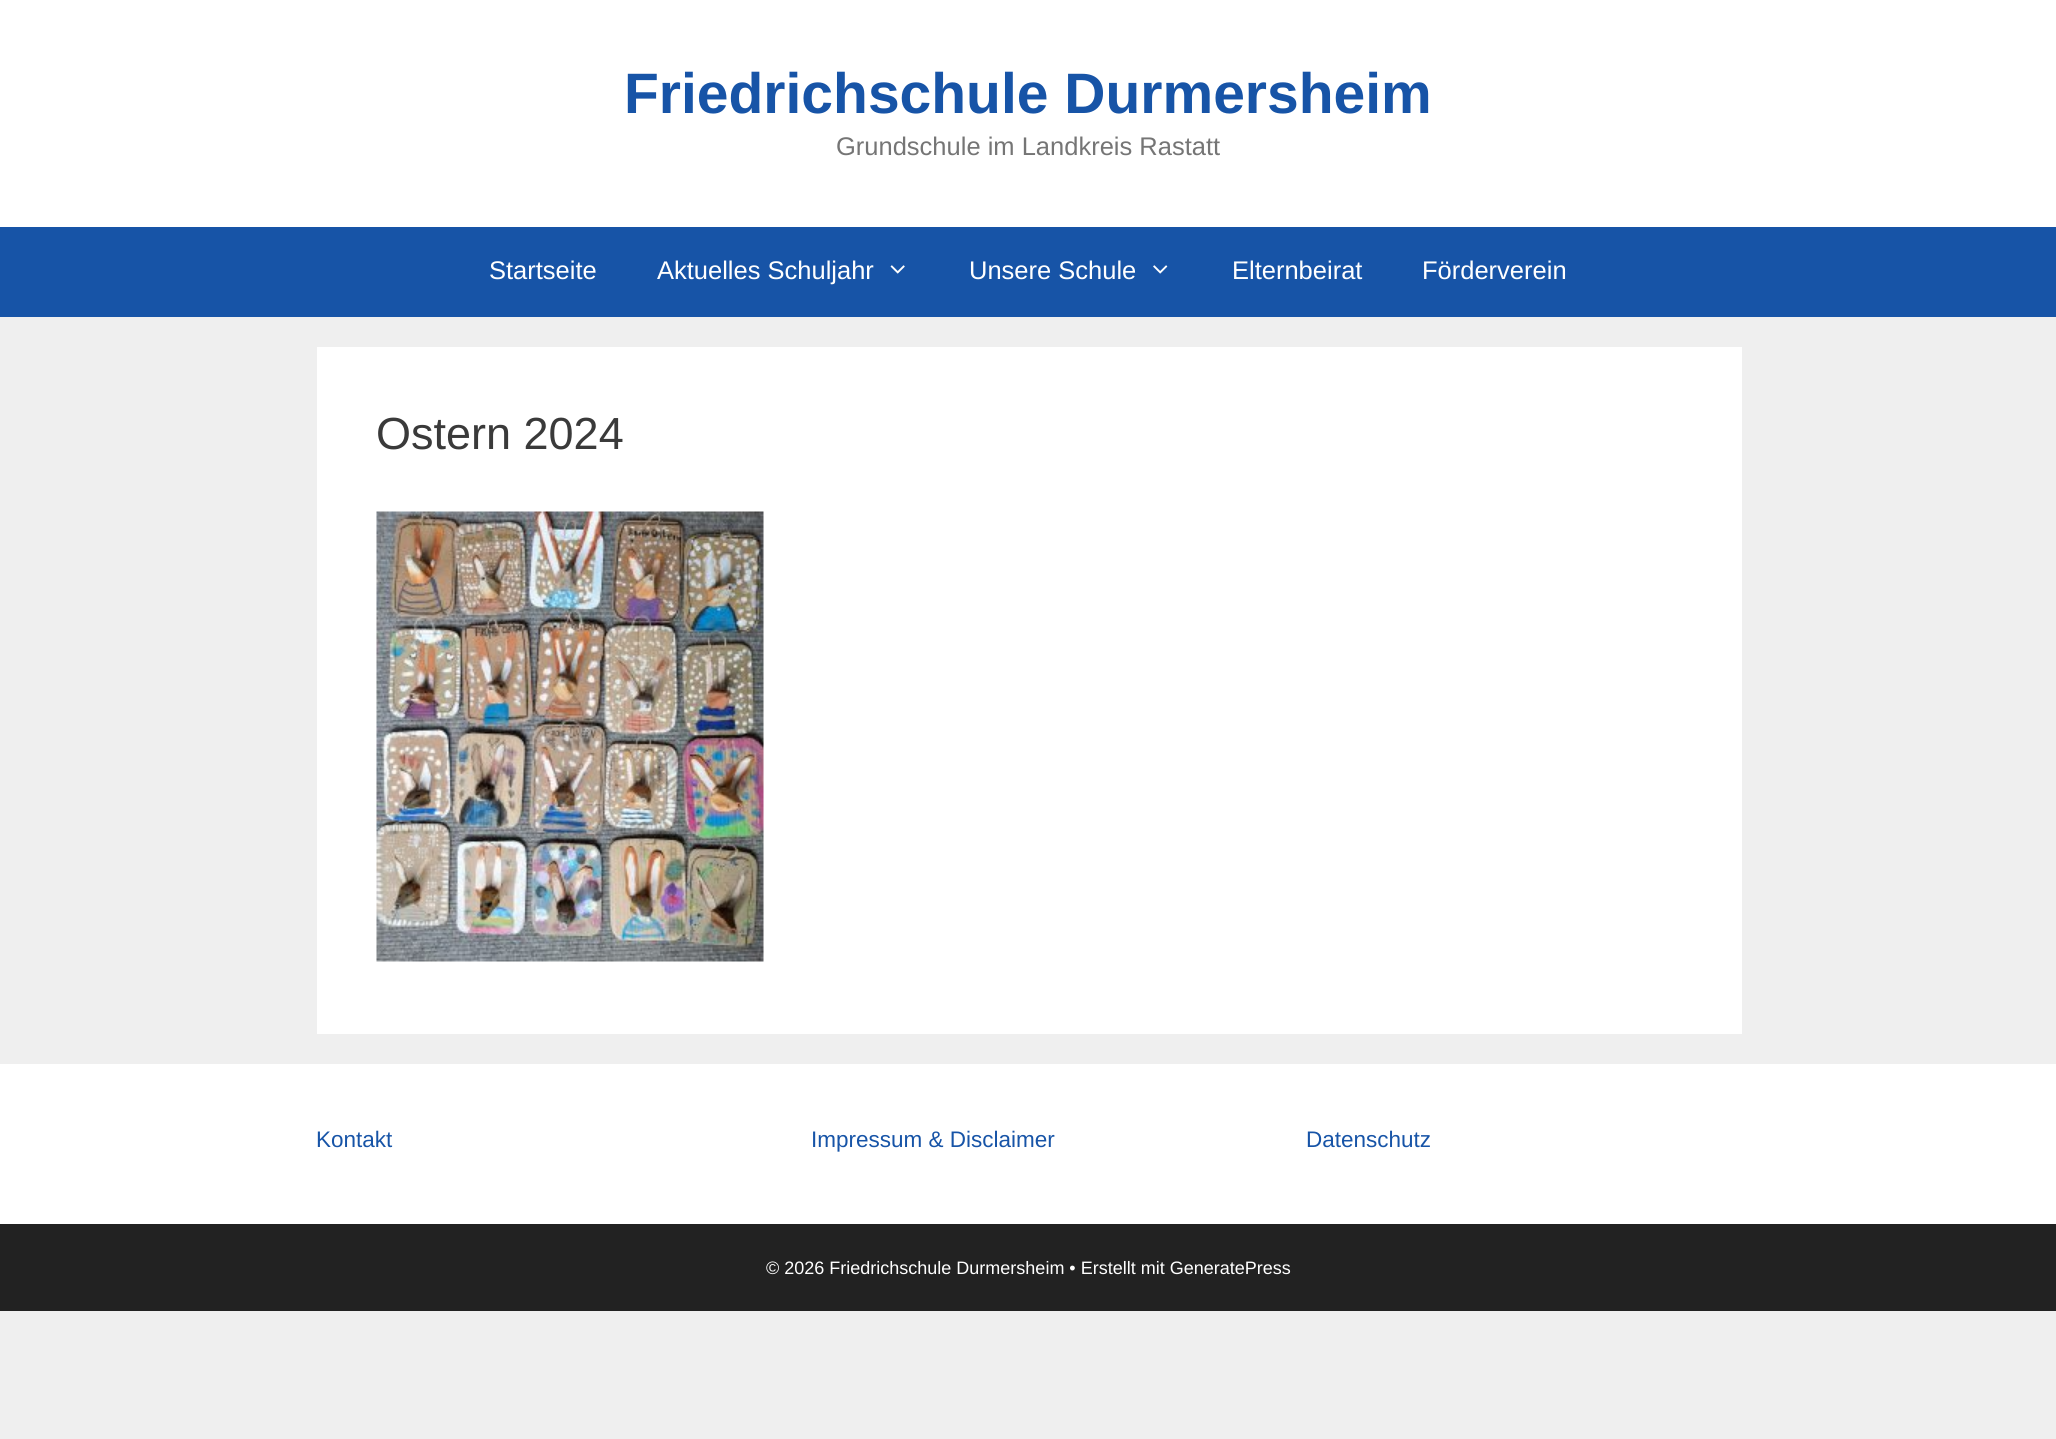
#include <cairo/cairo.h>
#include <math.h>
#include <stddef.h>

typedef struct { double x, y; const char *s; } line_t;
static cairo_t *cr;

static void rgb(unsigned color)
{
	cairo_set_source_rgb(cr, (color >> 16) / 255.0, (color >> 8 & 255) / 255.0, (color & 255) / 255.0);
}

static void image(const char *path, double x, double y, double w, double h)
{
	cairo_surface_t *image = cairo_image_surface_create_from_png(path);
	cairo_save(cr);
	cairo_set_source_surface(cr, image, x, y);
	cairo_rectangle(cr, x, y, w, h);
	cairo_fill(cr);
	cairo_restore(cr);
	cairo_surface_destroy(image);
}

int main(void) {
	cairo_surface_t *surface = cairo_image_surface_create(CAIRO_FORMAT_RGB24, 2056, 1439);
	cr = cairo_create(surface);
	cairo_font_options_t *options = cairo_font_options_create();
	cairo_font_options_set_hint_metrics(options, CAIRO_HINT_METRICS_OFF);
	cairo_font_options_set_hint_style(options, CAIRO_HINT_STYLE_NONE);
	cairo_set_font_options(cr, options);
	cairo_set_miter_limit(cr, 4);
	rgb(0xefefef);
	cairo_paint(cr);
	rgb(0xffffff);
	cairo_rectangle(cr, 0, 0, 2056, 227);
	cairo_fill(cr);
	rgb(0x1754a7);
	cairo_rectangle(cr, 0, 227, 2056, 90);
	cairo_fill(cr);
	image("img/1.png", 890, 265, 15, 9);
	image("img/2.png", 1153, 265, 15, 9);
	rgb(0xffffff);
	cairo_rectangle(cr, 317, 347, 1425, 687);
	cairo_fill(cr);
	image("img/3.png", 376, 511, 388, 451);
	cairo_rectangle(cr, 0, 1064, 2056, 160);
	cairo_fill(cr);
	rgb(0x222222);
	cairo_rectangle(cr, 0, 1224, 2056, 87);
	cairo_fill(cr);
	cairo_select_font_face(cr, "Liberation Sans", CAIRO_FONT_SLANT_NORMAL, CAIRO_FONT_WEIGHT_BOLD);
	cairo_set_font_size(cr, 57);
	rgb(0x1754a7);
	cairo_move_to(cr, 624, 113);
	cairo_show_text(cr, "Friedrichschule Durmersheim");
	cairo_select_font_face(cr, "Liberation Sans", CAIRO_FONT_SLANT_NORMAL, CAIRO_FONT_WEIGHT_NORMAL);
	cairo_set_font_size(cr, 25.5);
	rgb(0x757575);
	cairo_move_to(cr, 836, 155);
	cairo_show_text(cr, "Grundschule im Landkreis Rastatt");
	rgb(0xffffff);
	{
		static const line_t items[] = {
			{489, 279, "Startseite"},
			{657, 279, "Aktuelles Schuljahr"},
			{969, 279, "Unsere Schule"},
			{1232, 279, "Elternbeirat"},
			{1422, 279, "Förderverein"},
		};
		for (size_t i = 0; i < sizeof items / sizeof *items; i++) {
			cairo_move_to(cr, items[i].x, items[i].y);
			cairo_show_text(cr, items[i].s);
		}
	}
	cairo_set_font_size(cr, 45);
	rgb(0x3a3a3a);
	cairo_move_to(cr, 376, 449);
	cairo_show_text(cr, "Ostern 2024");
	cairo_set_font_size(cr, 22.5);
	rgb(0x1754a7);
	{
		static const line_t items[] = {
			{316, 1147, "Kontakt"},
			{811, 1147, "Impressum & Disclaimer"},
			{1306, 1147, "Datenschutz"},
		};
		for (size_t i = 0; i < sizeof items / sizeof *items; i++) {
			cairo_move_to(cr, items[i].x, items[i].y);
			cairo_show_text(cr, items[i].s);
		}
	}
	cairo_set_font_size(cr, 18);
	rgb(0xffffff);
	cairo_move_to(cr, 766, 1274);
	cairo_show_text(cr, "© 2026 Friedrichschule Durmersheim • Erstellt mit GeneratePress");
	cairo_surface_write_to_png(surface, "page.png");
	cairo_font_options_destroy(options);
	cairo_destroy(cr);
	cairo_surface_destroy(surface);
	return 0;
}
